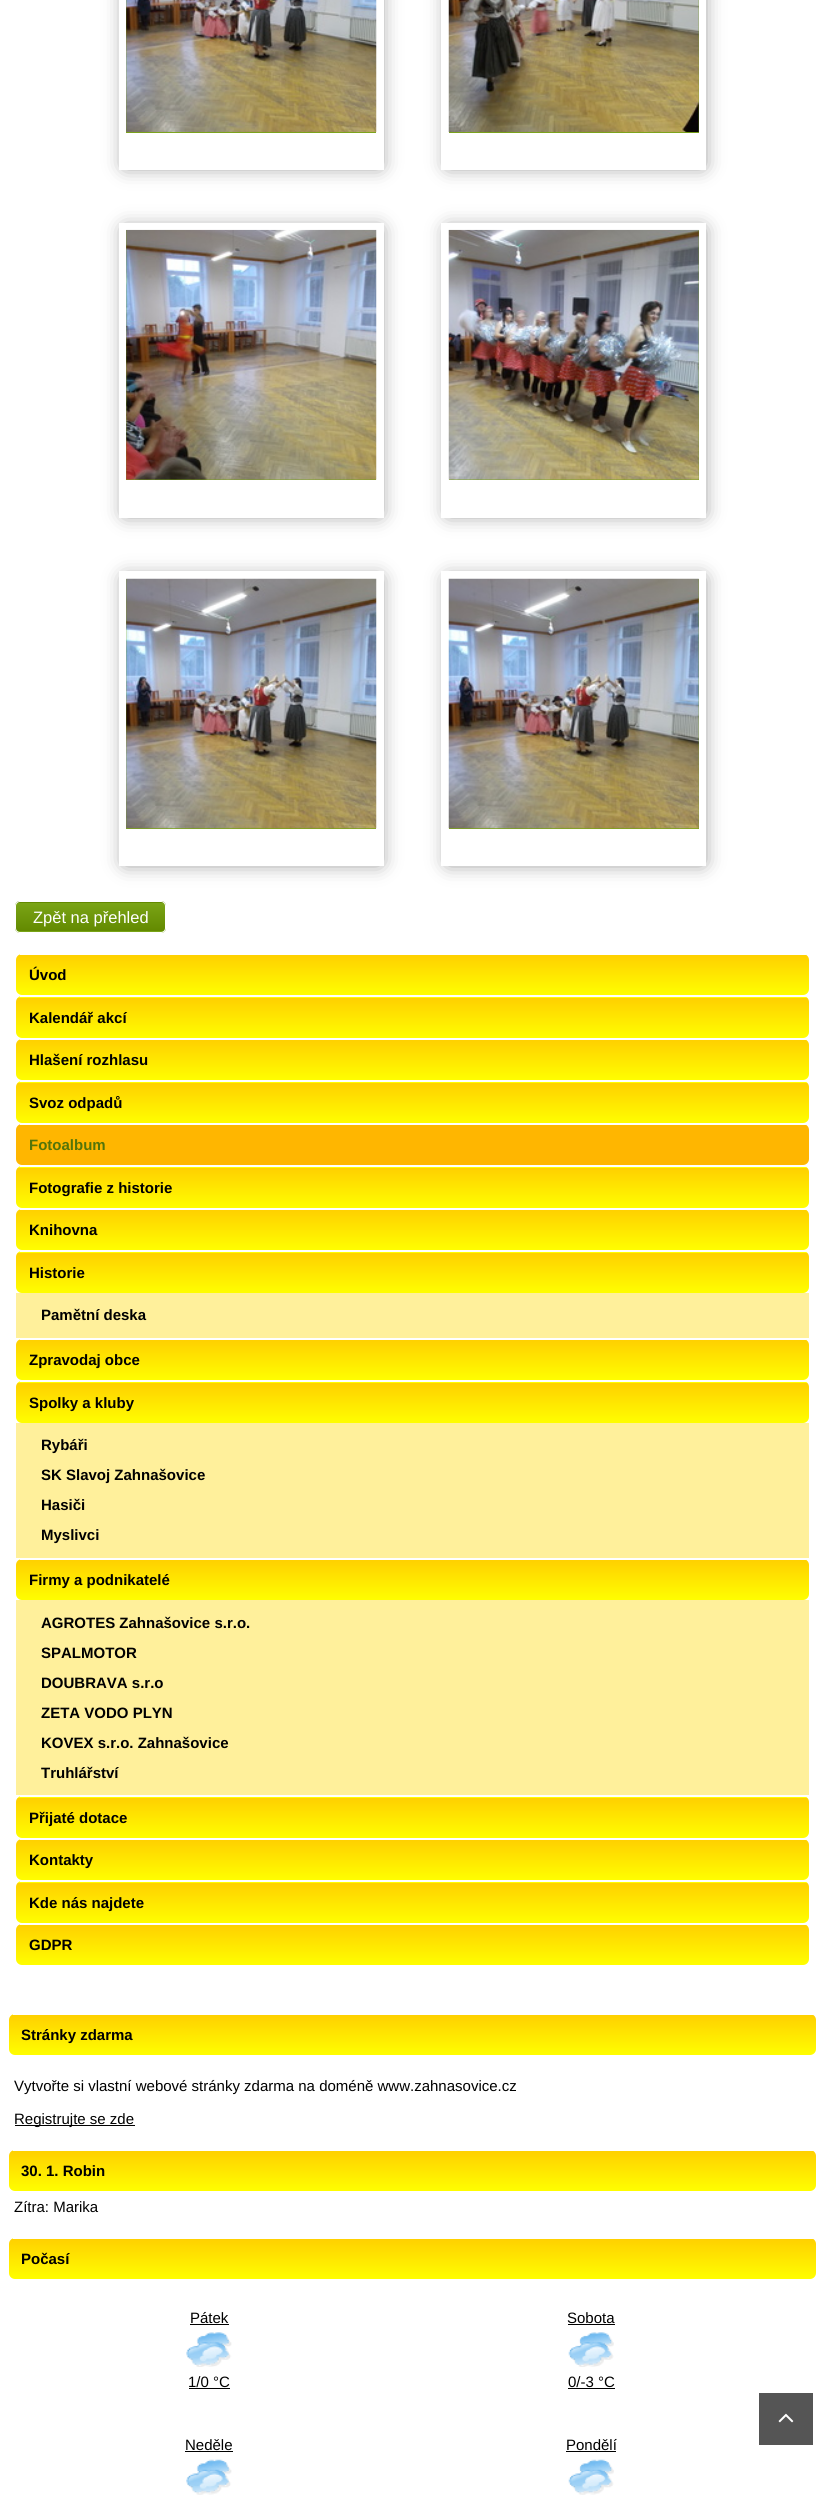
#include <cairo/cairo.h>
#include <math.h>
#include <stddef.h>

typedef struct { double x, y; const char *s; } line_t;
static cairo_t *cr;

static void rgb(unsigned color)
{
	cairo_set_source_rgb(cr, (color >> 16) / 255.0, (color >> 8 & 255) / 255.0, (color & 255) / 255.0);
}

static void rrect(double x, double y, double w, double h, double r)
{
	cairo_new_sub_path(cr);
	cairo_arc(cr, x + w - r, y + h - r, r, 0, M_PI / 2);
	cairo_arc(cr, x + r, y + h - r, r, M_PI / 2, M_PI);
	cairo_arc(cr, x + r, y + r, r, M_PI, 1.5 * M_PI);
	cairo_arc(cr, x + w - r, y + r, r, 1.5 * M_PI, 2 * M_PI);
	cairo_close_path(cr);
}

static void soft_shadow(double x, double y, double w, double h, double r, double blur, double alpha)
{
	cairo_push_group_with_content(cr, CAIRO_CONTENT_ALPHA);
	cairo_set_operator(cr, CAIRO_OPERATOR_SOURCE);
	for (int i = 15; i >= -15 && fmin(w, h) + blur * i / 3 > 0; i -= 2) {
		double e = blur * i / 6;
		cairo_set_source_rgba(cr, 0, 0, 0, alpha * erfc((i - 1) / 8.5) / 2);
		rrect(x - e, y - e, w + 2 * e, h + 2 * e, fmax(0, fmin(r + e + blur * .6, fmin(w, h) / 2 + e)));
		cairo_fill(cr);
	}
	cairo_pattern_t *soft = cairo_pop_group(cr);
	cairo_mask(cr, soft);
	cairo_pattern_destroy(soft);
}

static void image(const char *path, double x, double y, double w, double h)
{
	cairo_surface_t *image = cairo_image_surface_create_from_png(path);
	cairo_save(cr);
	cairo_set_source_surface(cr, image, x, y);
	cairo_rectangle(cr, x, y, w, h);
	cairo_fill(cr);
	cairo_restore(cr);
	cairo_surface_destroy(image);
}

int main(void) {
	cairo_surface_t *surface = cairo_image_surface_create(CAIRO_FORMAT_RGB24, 825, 2501);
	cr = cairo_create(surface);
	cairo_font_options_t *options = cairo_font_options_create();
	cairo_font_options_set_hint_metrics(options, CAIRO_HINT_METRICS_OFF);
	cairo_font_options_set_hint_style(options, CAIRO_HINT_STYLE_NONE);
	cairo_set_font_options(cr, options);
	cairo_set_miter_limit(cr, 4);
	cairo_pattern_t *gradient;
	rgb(0xffffff);
	cairo_paint(cr);
	cairo_save(cr);
	cairo_set_fill_rule(cr, CAIRO_FILL_RULE_EVEN_ODD);
	cairo_new_path(cr);
	cairo_move_to(cr, 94, 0);
	cairo_line_to(cr, 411, 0);
	cairo_line_to(cr, 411, 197);
	cairo_line_to(cr, 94, 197);
	cairo_close_path(cr);
	cairo_move_to(cr, 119, -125);
	cairo_line_to(cr, 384, -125);
	cairo_line_to(cr, 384, 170);
	cairo_line_to(cr, 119, 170);
	cairo_close_path(cr);
	cairo_clip(cr);
	rgb(0x888888);
	soft_shadow(125, -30, 255, 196, 0, 10, 1);
	cairo_restore(cr);
	rgb(0x7aa416);
	cairo_rectangle(cr, 126, 0, 250, 133);
	cairo_fill(cr);
	image("img/1.png", 126, 0, 251, 133);
	cairo_save(cr);
	cairo_set_fill_rule(cr, CAIRO_FILL_RULE_EVEN_ODD);
	cairo_new_path(cr);
	cairo_move_to(cr, 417, 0);
	cairo_line_to(cr, 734, 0);
	cairo_line_to(cr, 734, 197);
	cairo_line_to(cr, 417, 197);
	cairo_close_path(cr);
	cairo_move_to(cr, 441, -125);
	cairo_line_to(cr, 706, -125);
	cairo_line_to(cr, 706, 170);
	cairo_line_to(cr, 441, 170);
	cairo_close_path(cr);
	cairo_clip(cr);
	rgb(0x888888);
	soft_shadow(448, -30, 255, 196, 0, 10, 1);
	cairo_restore(cr);
	cairo_rectangle(cr, 449, 0, 250, 133);
	cairo_fill(cr);
	image("img/2.png", 448, 0, 251, 133);
	cairo_save(cr);
	cairo_set_fill_rule(cr, CAIRO_FILL_RULE_EVEN_ODD);
	cairo_new_path(cr);
	cairo_move_to(cr, 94, 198);
	cairo_line_to(cr, 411, 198);
	cairo_line_to(cr, 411, 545);
	cairo_line_to(cr, 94, 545);
	cairo_close_path(cr);
	cairo_move_to(cr, 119, 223);
	cairo_line_to(cr, 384, 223);
	cairo_line_to(cr, 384, 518);
	cairo_line_to(cr, 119, 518);
	cairo_close_path(cr);
	cairo_clip(cr);
	rgb(0x888888);
	soft_shadow(125, 229, 255, 285, 0, 10, 1);
	cairo_restore(cr);
	cairo_rectangle(cr, 126, 230, 250, 250);
	cairo_fill(cr);
	image("img/3.png", 126, 229, 251, 251);
	cairo_save(cr);
	cairo_set_fill_rule(cr, CAIRO_FILL_RULE_EVEN_ODD);
	cairo_new_path(cr);
	cairo_move_to(cr, 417, 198);
	cairo_line_to(cr, 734, 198);
	cairo_line_to(cr, 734, 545);
	cairo_line_to(cr, 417, 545);
	cairo_close_path(cr);
	cairo_move_to(cr, 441, 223);
	cairo_line_to(cr, 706, 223);
	cairo_line_to(cr, 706, 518);
	cairo_line_to(cr, 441, 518);
	cairo_close_path(cr);
	cairo_clip(cr);
	rgb(0x888888);
	soft_shadow(448, 229, 255, 285, 0, 10, 1);
	cairo_restore(cr);
	cairo_rectangle(cr, 449, 230, 250, 250);
	cairo_fill(cr);
	image("img/4.png", 448, 229, 251, 251);
	cairo_save(cr);
	cairo_set_fill_rule(cr, CAIRO_FILL_RULE_EVEN_ODD);
	cairo_new_path(cr);
	cairo_move_to(cr, 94, 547);
	cairo_line_to(cr, 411, 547);
	cairo_line_to(cr, 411, 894);
	cairo_line_to(cr, 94, 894);
	cairo_close_path(cr);
	cairo_move_to(cr, 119, 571);
	cairo_line_to(cr, 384, 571);
	cairo_line_to(cr, 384, 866);
	cairo_line_to(cr, 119, 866);
	cairo_close_path(cr);
	cairo_clip(cr);
	rgb(0x888888);
	soft_shadow(125, 578, 255, 285, 0, 10, 1);
	cairo_restore(cr);
	cairo_rectangle(cr, 126, 579, 250, 250);
	cairo_fill(cr);
	image("img/5.png", 126, 578, 251, 251);
	cairo_save(cr);
	cairo_set_fill_rule(cr, CAIRO_FILL_RULE_EVEN_ODD);
	cairo_new_path(cr);
	cairo_move_to(cr, 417, 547);
	cairo_line_to(cr, 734, 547);
	cairo_line_to(cr, 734, 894);
	cairo_line_to(cr, 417, 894);
	cairo_close_path(cr);
	cairo_move_to(cr, 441, 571);
	cairo_line_to(cr, 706, 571);
	cairo_line_to(cr, 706, 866);
	cairo_line_to(cr, 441, 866);
	cairo_close_path(cr);
	cairo_clip(cr);
	rgb(0x888888);
	soft_shadow(448, 578, 255, 285, 0, 10, 1);
	cairo_restore(cr);
	cairo_rectangle(cr, 449, 579, 250, 250);
	cairo_fill(cr);
	image("img/6.png", 448, 578, 251, 251);
	cairo_save(cr);
	rrect(15, 901, 151, 32, 5);
	cairo_clip(cr);
	gradient = cairo_pattern_create_linear(16, 874, 16, 903);
	cairo_pattern_add_color_stop_rgba(gradient, 0, 0.478, 0.643, 0.086, 1);
	cairo_pattern_add_color_stop_rgba(gradient, 1, 0.388, 0.541, 0, 1);
	cairo_set_source(cr, gradient);
	cairo_pattern_destroy(gradient);
	cairo_rectangle(cr, 15, 901, 151, 2);
	cairo_fill(cr);
	gradient = cairo_pattern_create_linear(16, 903, 16, 931);
	cairo_pattern_add_color_stop_rgba(gradient, 0, 0.478, 0.643, 0.086, 1);
	cairo_pattern_add_color_stop_rgba(gradient, 1, 0.388, 0.541, 0, 1);
	cairo_set_source(cr, gradient);
	cairo_pattern_destroy(gradient);
	cairo_rectangle(cr, 15, 903, 151, 28);
	cairo_fill(cr);
	gradient = cairo_pattern_create_linear(16, 931, 16, 960);
	cairo_pattern_add_color_stop_rgba(gradient, 0, 0.478, 0.643, 0.086, 1);
	cairo_pattern_add_color_stop_rgba(gradient, 1, 0.388, 0.541, 0, 1);
	cairo_set_source(cr, gradient);
	cairo_pattern_destroy(gradient);
	cairo_rectangle(cr, 15, 931, 151, 2);
	cairo_fill(cr);
	cairo_restore(cr);
	rrect(15.5, 901.5, 150, 31, 4.5);
	rgb(0xffffff);
	cairo_set_line_width(cr, 1);
	cairo_stroke(cr);
	cairo_save(cr);
	rrect(16, 954, 793, 41, 6);
	cairo_clip(cr);
	gradient = cairo_pattern_create_linear(413, 915, 413, 955);
	cairo_pattern_add_color_stop_rgba(gradient, 0, 1, 0.816, 0, 1);
	cairo_pattern_add_color_stop_rgba(gradient, 1, 1, 0.996, 0, 1);
	cairo_set_source(cr, gradient);
	cairo_pattern_destroy(gradient);
	cairo_rectangle(cr, 16, 954, 793, 1);
	cairo_fill(cr);
	gradient = cairo_pattern_create_linear(413, 955, 413, 995);
	cairo_pattern_add_color_stop_rgba(gradient, 0, 1, 0.816, 0, 1);
	cairo_pattern_add_color_stop_rgba(gradient, 1, 1, 0.996, 0, 1);
	cairo_set_source(cr, gradient);
	cairo_pattern_destroy(gradient);
	cairo_new_path(cr);
	cairo_move_to(cr, 16, 955);
	cairo_line_to(cr, 809, 955);
	cairo_line_to(cr, 809, 989);
	cairo_curve_to(cr, 809, 992.5, 806.5, 995, 803, 995);
	cairo_line_to(cr, 22, 995);
	cairo_curve_to(cr, 18.5, 995, 16, 992.5, 16, 989);
	cairo_close_path(cr);
	cairo_fill(cr);
	cairo_restore(cr);
	cairo_rectangle(cr, 20, 954, 786, 1);
	cairo_fill(cr);
	cairo_save(cr);
	rrect(16, 996, 793, 42, 6);
	cairo_clip(cr);
	gradient = cairo_pattern_create_linear(413, 958, 413, 998);
	cairo_pattern_add_color_stop_rgba(gradient, 0, 1, 0.816, 0, 1);
	cairo_pattern_add_color_stop_rgba(gradient, 1, 1, 0.996, 0, 1);
	cairo_set_source(cr, gradient);
	cairo_pattern_destroy(gradient);
	cairo_rectangle(cr, 16, 996, 793, 2);
	cairo_fill(cr);
	gradient = cairo_pattern_create_linear(413, 998, 413, 1038);
	cairo_pattern_add_color_stop_rgba(gradient, 0, 1, 0.816, 0, 1);
	cairo_pattern_add_color_stop_rgba(gradient, 1, 1, 0.996, 0, 1);
	cairo_set_source(cr, gradient);
	cairo_pattern_destroy(gradient);
	cairo_new_path(cr);
	cairo_move_to(cr, 16, 998);
	cairo_line_to(cr, 809, 998);
	cairo_line_to(cr, 809, 1032);
	cairo_curve_to(cr, 809, 1035.5, 806.5, 1038, 803, 1038);
	cairo_line_to(cr, 22, 1038);
	cairo_curve_to(cr, 18.5, 1038, 16, 1035.5, 16, 1032);
	cairo_close_path(cr);
	cairo_fill(cr);
	cairo_restore(cr);
	cairo_rectangle(cr, 20, 996, 786, 1);
	cairo_fill(cr);
	cairo_save(cr);
	rrect(16, 1039, 793, 41, 6);
	cairo_clip(cr);
	gradient = cairo_pattern_create_linear(413, 1000, 413, 1040);
	cairo_pattern_add_color_stop_rgba(gradient, 0, 1, 0.816, 0, 1);
	cairo_pattern_add_color_stop_rgba(gradient, 1, 1, 0.996, 0, 1);
	cairo_set_source(cr, gradient);
	cairo_pattern_destroy(gradient);
	cairo_rectangle(cr, 16, 1039, 793, 1);
	cairo_fill(cr);
	gradient = cairo_pattern_create_linear(413, 1040, 413, 1080);
	cairo_pattern_add_color_stop_rgba(gradient, 0, 1, 0.816, 0, 1);
	cairo_pattern_add_color_stop_rgba(gradient, 1, 1, 0.996, 0, 1);
	cairo_set_source(cr, gradient);
	cairo_pattern_destroy(gradient);
	cairo_new_path(cr);
	cairo_move_to(cr, 16, 1040);
	cairo_line_to(cr, 809, 1040);
	cairo_line_to(cr, 809, 1074);
	cairo_curve_to(cr, 809, 1077.5, 806.5, 1080, 803, 1080);
	cairo_line_to(cr, 22, 1080);
	cairo_curve_to(cr, 18.5, 1080, 16, 1077.5, 16, 1074);
	cairo_close_path(cr);
	cairo_fill(cr);
	cairo_restore(cr);
	cairo_rectangle(cr, 20, 1039, 786, 1);
	cairo_fill(cr);
	cairo_save(cr);
	rrect(16, 1081, 793, 42, 6);
	cairo_clip(cr);
	gradient = cairo_pattern_create_linear(413, 1043, 413, 1083);
	cairo_pattern_add_color_stop_rgba(gradient, 0, 1, 0.816, 0, 1);
	cairo_pattern_add_color_stop_rgba(gradient, 1, 1, 0.996, 0, 1);
	cairo_set_source(cr, gradient);
	cairo_pattern_destroy(gradient);
	cairo_rectangle(cr, 16, 1081, 793, 2);
	cairo_fill(cr);
	gradient = cairo_pattern_create_linear(413, 1083, 413, 1123);
	cairo_pattern_add_color_stop_rgba(gradient, 0, 1, 0.816, 0, 1);
	cairo_pattern_add_color_stop_rgba(gradient, 1, 1, 0.996, 0, 1);
	cairo_set_source(cr, gradient);
	cairo_pattern_destroy(gradient);
	cairo_new_path(cr);
	cairo_move_to(cr, 16, 1083);
	cairo_line_to(cr, 809, 1083);
	cairo_line_to(cr, 809, 1117);
	cairo_curve_to(cr, 809, 1120.5, 806.5, 1123, 803, 1123);
	cairo_line_to(cr, 22, 1123);
	cairo_curve_to(cr, 18.5, 1123, 16, 1120.5, 16, 1117);
	cairo_close_path(cr);
	cairo_fill(cr);
	cairo_restore(cr);
	cairo_rectangle(cr, 20, 1081, 786, 1);
	cairo_fill(cr);
	rgb(0xffb600);
	rrect(16, 1124, 793, 41, 6);
	cairo_fill(cr);
	rgb(0xffffff);
	cairo_rectangle(cr, 20, 1124, 786, 1);
	cairo_fill(cr);
	cairo_save(cr);
	rrect(16, 1166, 793, 42, 6);
	cairo_clip(cr);
	gradient = cairo_pattern_create_linear(413, 1128, 413, 1168);
	cairo_pattern_add_color_stop_rgba(gradient, 0, 1, 0.816, 0, 1);
	cairo_pattern_add_color_stop_rgba(gradient, 1, 1, 0.996, 0, 1);
	cairo_set_source(cr, gradient);
	cairo_pattern_destroy(gradient);
	cairo_rectangle(cr, 16, 1166, 793, 2);
	cairo_fill(cr);
	gradient = cairo_pattern_create_linear(413, 1168, 413, 1208);
	cairo_pattern_add_color_stop_rgba(gradient, 0, 1, 0.816, 0, 1);
	cairo_pattern_add_color_stop_rgba(gradient, 1, 1, 0.996, 0, 1);
	cairo_set_source(cr, gradient);
	cairo_pattern_destroy(gradient);
	cairo_new_path(cr);
	cairo_move_to(cr, 16, 1168);
	cairo_line_to(cr, 809, 1168);
	cairo_line_to(cr, 809, 1202);
	cairo_curve_to(cr, 809, 1205.5, 806.5, 1208, 803, 1208);
	cairo_line_to(cr, 22, 1208);
	cairo_curve_to(cr, 18.5, 1208, 16, 1205.5, 16, 1202);
	cairo_close_path(cr);
	cairo_fill(cr);
	cairo_restore(cr);
	cairo_rectangle(cr, 20, 1166, 786, 1);
	cairo_fill(cr);
	cairo_save(cr);
	rrect(16, 1209, 793, 41, 6);
	cairo_clip(cr);
	gradient = cairo_pattern_create_linear(413, 1170, 413, 1210);
	cairo_pattern_add_color_stop_rgba(gradient, 0, 1, 0.816, 0, 1);
	cairo_pattern_add_color_stop_rgba(gradient, 1, 1, 0.996, 0, 1);
	cairo_set_source(cr, gradient);
	cairo_pattern_destroy(gradient);
	cairo_rectangle(cr, 16, 1209, 793, 1);
	cairo_fill(cr);
	gradient = cairo_pattern_create_linear(413, 1210, 413, 1250);
	cairo_pattern_add_color_stop_rgba(gradient, 0, 1, 0.816, 0, 1);
	cairo_pattern_add_color_stop_rgba(gradient, 1, 1, 0.996, 0, 1);
	cairo_set_source(cr, gradient);
	cairo_pattern_destroy(gradient);
	cairo_new_path(cr);
	cairo_move_to(cr, 16, 1210);
	cairo_line_to(cr, 809, 1210);
	cairo_line_to(cr, 809, 1244);
	cairo_curve_to(cr, 809, 1247.5, 806.5, 1250, 803, 1250);
	cairo_line_to(cr, 22, 1250);
	cairo_curve_to(cr, 18.5, 1250, 16, 1247.5, 16, 1244);
	cairo_close_path(cr);
	cairo_fill(cr);
	cairo_restore(cr);
	cairo_rectangle(cr, 20, 1209, 786, 1);
	cairo_fill(cr);
	cairo_save(cr);
	rrect(16, 1251, 793, 42, 6);
	cairo_clip(cr);
	gradient = cairo_pattern_create_linear(413, 1213, 413, 1253);
	cairo_pattern_add_color_stop_rgba(gradient, 0, 1, 0.816, 0, 1);
	cairo_pattern_add_color_stop_rgba(gradient, 1, 1, 0.996, 0, 1);
	cairo_set_source(cr, gradient);
	cairo_pattern_destroy(gradient);
	cairo_rectangle(cr, 16, 1251, 793, 2);
	cairo_fill(cr);
	gradient = cairo_pattern_create_linear(413, 1253, 413, 1293);
	cairo_pattern_add_color_stop_rgba(gradient, 0, 1, 0.816, 0, 1);
	cairo_pattern_add_color_stop_rgba(gradient, 1, 1, 0.996, 0, 1);
	cairo_set_source(cr, gradient);
	cairo_pattern_destroy(gradient);
	cairo_new_path(cr);
	cairo_move_to(cr, 16, 1253);
	cairo_line_to(cr, 809, 1253);
	cairo_line_to(cr, 809, 1287);
	cairo_curve_to(cr, 809, 1290.5, 806.5, 1293, 803, 1293);
	cairo_line_to(cr, 22, 1293);
	cairo_curve_to(cr, 18.5, 1293, 16, 1290.5, 16, 1287);
	cairo_close_path(cr);
	cairo_fill(cr);
	cairo_restore(cr);
	cairo_rectangle(cr, 20, 1251, 786, 1);
	cairo_fill(cr);
	rgb(0xfff09b);
	cairo_rectangle(cr, 16, 1293, 793, 45);
	cairo_fill(cr);
	cairo_save(cr);
	rrect(16, 1339, 793, 41, 6);
	cairo_clip(cr);
	gradient = cairo_pattern_create_linear(413, 1300, 413, 1340);
	cairo_pattern_add_color_stop_rgba(gradient, 0, 1, 0.816, 0, 1);
	cairo_pattern_add_color_stop_rgba(gradient, 1, 1, 0.996, 0, 1);
	cairo_set_source(cr, gradient);
	cairo_pattern_destroy(gradient);
	cairo_rectangle(cr, 16, 1339, 793, 1);
	cairo_fill(cr);
	gradient = cairo_pattern_create_linear(413, 1340, 413, 1380);
	cairo_pattern_add_color_stop_rgba(gradient, 0, 1, 0.816, 0, 1);
	cairo_pattern_add_color_stop_rgba(gradient, 1, 1, 0.996, 0, 1);
	cairo_set_source(cr, gradient);
	cairo_pattern_destroy(gradient);
	cairo_new_path(cr);
	cairo_move_to(cr, 16, 1340);
	cairo_line_to(cr, 809, 1340);
	cairo_line_to(cr, 809, 1374);
	cairo_curve_to(cr, 809, 1377.5, 806.5, 1380, 803, 1380);
	cairo_line_to(cr, 22, 1380);
	cairo_curve_to(cr, 18.5, 1380, 16, 1377.5, 16, 1374);
	cairo_close_path(cr);
	cairo_fill(cr);
	cairo_restore(cr);
	rgb(0xffffff);
	cairo_rectangle(cr, 20, 1339, 786, 1);
	cairo_fill(cr);
	cairo_save(cr);
	rrect(16, 1381, 793, 42, 6);
	cairo_clip(cr);
	gradient = cairo_pattern_create_linear(413, 1343, 413, 1383);
	cairo_pattern_add_color_stop_rgba(gradient, 0, 1, 0.816, 0, 1);
	cairo_pattern_add_color_stop_rgba(gradient, 1, 1, 0.996, 0, 1);
	cairo_set_source(cr, gradient);
	cairo_pattern_destroy(gradient);
	cairo_rectangle(cr, 16, 1381, 793, 2);
	cairo_fill(cr);
	gradient = cairo_pattern_create_linear(413, 1383, 413, 1423);
	cairo_pattern_add_color_stop_rgba(gradient, 0, 1, 0.816, 0, 1);
	cairo_pattern_add_color_stop_rgba(gradient, 1, 1, 0.996, 0, 1);
	cairo_set_source(cr, gradient);
	cairo_pattern_destroy(gradient);
	cairo_new_path(cr);
	cairo_move_to(cr, 16, 1383);
	cairo_line_to(cr, 809, 1383);
	cairo_line_to(cr, 809, 1417);
	cairo_curve_to(cr, 809, 1420.5, 806.5, 1423, 803, 1423);
	cairo_line_to(cr, 22, 1423);
	cairo_curve_to(cr, 18.5, 1423, 16, 1420.5, 16, 1417);
	cairo_close_path(cr);
	cairo_fill(cr);
	cairo_restore(cr);
	cairo_rectangle(cr, 20, 1381, 786, 1);
	cairo_fill(cr);
	rgb(0xfff09b);
	cairo_rectangle(cr, 16, 1423, 793, 135);
	cairo_fill(cr);
	cairo_save(cr);
	rrect(16, 1559, 793, 41, 6);
	cairo_clip(cr);
	gradient = cairo_pattern_create_linear(413, 1520, 413, 1560);
	cairo_pattern_add_color_stop_rgba(gradient, 0, 1, 0.816, 0, 1);
	cairo_pattern_add_color_stop_rgba(gradient, 1, 1, 0.996, 0, 1);
	cairo_set_source(cr, gradient);
	cairo_pattern_destroy(gradient);
	cairo_rectangle(cr, 16, 1559, 793, 1);
	cairo_fill(cr);
	gradient = cairo_pattern_create_linear(413, 1560, 413, 1600);
	cairo_pattern_add_color_stop_rgba(gradient, 0, 1, 0.816, 0, 1);
	cairo_pattern_add_color_stop_rgba(gradient, 1, 1, 0.996, 0, 1);
	cairo_set_source(cr, gradient);
	cairo_pattern_destroy(gradient);
	cairo_new_path(cr);
	cairo_move_to(cr, 16, 1560);
	cairo_line_to(cr, 809, 1560);
	cairo_line_to(cr, 809, 1594);
	cairo_curve_to(cr, 809, 1597.5, 806.5, 1600, 803, 1600);
	cairo_line_to(cr, 22, 1600);
	cairo_curve_to(cr, 18.5, 1600, 16, 1597.5, 16, 1594);
	cairo_close_path(cr);
	cairo_fill(cr);
	cairo_restore(cr);
	rgb(0xffffff);
	cairo_rectangle(cr, 20, 1559, 786, 1);
	cairo_fill(cr);
	rgb(0xfff09b);
	cairo_rectangle(cr, 16, 1600, 793, 195);
	cairo_fill(cr);
	cairo_save(cr);
	rrect(16, 1796, 793, 42, 6);
	cairo_clip(cr);
	gradient = cairo_pattern_create_linear(413, 1758, 413, 1798);
	cairo_pattern_add_color_stop_rgba(gradient, 0, 1, 0.816, 0, 1);
	cairo_pattern_add_color_stop_rgba(gradient, 1, 1, 0.996, 0, 1);
	cairo_set_source(cr, gradient);
	cairo_pattern_destroy(gradient);
	cairo_rectangle(cr, 16, 1796, 793, 2);
	cairo_fill(cr);
	gradient = cairo_pattern_create_linear(413, 1798, 413, 1838);
	cairo_pattern_add_color_stop_rgba(gradient, 0, 1, 0.816, 0, 1);
	cairo_pattern_add_color_stop_rgba(gradient, 1, 1, 0.996, 0, 1);
	cairo_set_source(cr, gradient);
	cairo_pattern_destroy(gradient);
	cairo_new_path(cr);
	cairo_move_to(cr, 16, 1798);
	cairo_line_to(cr, 809, 1798);
	cairo_line_to(cr, 809, 1832);
	cairo_curve_to(cr, 809, 1835.5, 806.5, 1838, 803, 1838);
	cairo_line_to(cr, 22, 1838);
	cairo_curve_to(cr, 18.5, 1838, 16, 1835.5, 16, 1832);
	cairo_close_path(cr);
	cairo_fill(cr);
	cairo_restore(cr);
	rgb(0xffffff);
	cairo_rectangle(cr, 20, 1796, 786, 1);
	cairo_fill(cr);
	cairo_save(cr);
	rrect(16, 1839, 793, 41, 6);
	cairo_clip(cr);
	gradient = cairo_pattern_create_linear(413, 1800, 413, 1840);
	cairo_pattern_add_color_stop_rgba(gradient, 0, 1, 0.816, 0, 1);
	cairo_pattern_add_color_stop_rgba(gradient, 1, 1, 0.996, 0, 1);
	cairo_set_source(cr, gradient);
	cairo_pattern_destroy(gradient);
	cairo_rectangle(cr, 16, 1839, 793, 1);
	cairo_fill(cr);
	gradient = cairo_pattern_create_linear(413, 1840, 413, 1880);
	cairo_pattern_add_color_stop_rgba(gradient, 0, 1, 0.816, 0, 1);
	cairo_pattern_add_color_stop_rgba(gradient, 1, 1, 0.996, 0, 1);
	cairo_set_source(cr, gradient);
	cairo_pattern_destroy(gradient);
	cairo_new_path(cr);
	cairo_move_to(cr, 16, 1840);
	cairo_line_to(cr, 809, 1840);
	cairo_line_to(cr, 809, 1874);
	cairo_curve_to(cr, 809, 1877.5, 806.5, 1880, 803, 1880);
	cairo_line_to(cr, 22, 1880);
	cairo_curve_to(cr, 18.5, 1880, 16, 1877.5, 16, 1874);
	cairo_close_path(cr);
	cairo_fill(cr);
	cairo_restore(cr);
	cairo_rectangle(cr, 20, 1839, 786, 1);
	cairo_fill(cr);
	cairo_save(cr);
	rrect(16, 1881, 793, 42, 6);
	cairo_clip(cr);
	gradient = cairo_pattern_create_linear(413, 1843, 413, 1883);
	cairo_pattern_add_color_stop_rgba(gradient, 0, 1, 0.816, 0, 1);
	cairo_pattern_add_color_stop_rgba(gradient, 1, 1, 0.996, 0, 1);
	cairo_set_source(cr, gradient);
	cairo_pattern_destroy(gradient);
	cairo_rectangle(cr, 16, 1881, 793, 2);
	cairo_fill(cr);
	gradient = cairo_pattern_create_linear(413, 1883, 413, 1923);
	cairo_pattern_add_color_stop_rgba(gradient, 0, 1, 0.816, 0, 1);
	cairo_pattern_add_color_stop_rgba(gradient, 1, 1, 0.996, 0, 1);
	cairo_set_source(cr, gradient);
	cairo_pattern_destroy(gradient);
	cairo_new_path(cr);
	cairo_move_to(cr, 16, 1883);
	cairo_line_to(cr, 809, 1883);
	cairo_line_to(cr, 809, 1917);
	cairo_curve_to(cr, 809, 1920.5, 806.5, 1923, 803, 1923);
	cairo_line_to(cr, 22, 1923);
	cairo_curve_to(cr, 18.5, 1923, 16, 1920.5, 16, 1917);
	cairo_close_path(cr);
	cairo_fill(cr);
	cairo_restore(cr);
	cairo_rectangle(cr, 20, 1881, 786, 1);
	cairo_fill(cr);
	cairo_save(cr);
	rrect(16, 1924, 793, 41, 6);
	cairo_clip(cr);
	gradient = cairo_pattern_create_linear(413, 1885, 413, 1925);
	cairo_pattern_add_color_stop_rgba(gradient, 0, 1, 0.816, 0, 1);
	cairo_pattern_add_color_stop_rgba(gradient, 1, 1, 0.996, 0, 1);
	cairo_set_source(cr, gradient);
	cairo_pattern_destroy(gradient);
	cairo_rectangle(cr, 16, 1924, 793, 1);
	cairo_fill(cr);
	gradient = cairo_pattern_create_linear(413, 1925, 413, 1965);
	cairo_pattern_add_color_stop_rgba(gradient, 0, 1, 0.816, 0, 1);
	cairo_pattern_add_color_stop_rgba(gradient, 1, 1, 0.996, 0, 1);
	cairo_set_source(cr, gradient);
	cairo_pattern_destroy(gradient);
	cairo_new_path(cr);
	cairo_move_to(cr, 16, 1925);
	cairo_line_to(cr, 809, 1925);
	cairo_line_to(cr, 809, 1959);
	cairo_curve_to(cr, 809, 1962.5, 806.5, 1965, 803, 1965);
	cairo_line_to(cr, 22, 1965);
	cairo_curve_to(cr, 18.5, 1965, 16, 1962.5, 16, 1959);
	cairo_close_path(cr);
	cairo_fill(cr);
	cairo_restore(cr);
	cairo_rectangle(cr, 20, 1924, 786, 1);
	cairo_fill(cr);
	cairo_save(cr);
	rrect(9, 2014, 807, 41, 6);
	cairo_clip(cr);
	gradient = cairo_pattern_create_linear(413, 1975, 413, 2015);
	cairo_pattern_add_color_stop_rgba(gradient, 0, 1, 0.816, 0, 1);
	cairo_pattern_add_color_stop_rgba(gradient, 1, 1, 0.996, 0, 1);
	cairo_set_source(cr, gradient);
	cairo_pattern_destroy(gradient);
	cairo_rectangle(cr, 9, 2014, 4, 1);
	cairo_fill(cr);
	gradient = cairo_pattern_create_linear(413, 2015, 413, 2055);
	cairo_pattern_add_color_stop_rgba(gradient, 0, 1, 0.816, 0, 1);
	cairo_pattern_add_color_stop_rgba(gradient, 1, 1, 0.996, 0, 1);
	cairo_set_source(cr, gradient);
	cairo_pattern_destroy(gradient);
	cairo_new_path(cr);
	cairo_move_to(cr, 9, 2015);
	cairo_line_to(cr, 816, 2015);
	cairo_line_to(cr, 816, 2049);
	cairo_curve_to(cr, 816, 2052.5, 813.5, 2055, 810, 2055);
	cairo_line_to(cr, 15, 2055);
	cairo_curve_to(cr, 11.5, 2055, 9, 2052.5, 9, 2049);
	cairo_close_path(cr);
	cairo_fill(cr);
	cairo_restore(cr);
	cairo_rectangle(cr, 13, 2014, 801, 1);
	cairo_fill(cr);
	rgb(0x000000);
	cairo_rectangle(cr, 15, 2125, 120, 1);
	cairo_fill(cr);
	cairo_save(cr);
	rrect(9, 2150, 807, 41, 6);
	cairo_clip(cr);
	gradient = cairo_pattern_create_linear(413, 2111, 413, 2151);
	cairo_pattern_add_color_stop_rgba(gradient, 0, 1, 0.816, 0, 1);
	cairo_pattern_add_color_stop_rgba(gradient, 1, 1, 0.996, 0, 1);
	cairo_set_source(cr, gradient);
	cairo_pattern_destroy(gradient);
	cairo_rectangle(cr, 9, 2150, 4, 1);
	cairo_fill(cr);
	gradient = cairo_pattern_create_linear(413, 2151, 413, 2191);
	cairo_pattern_add_color_stop_rgba(gradient, 0, 1, 0.816, 0, 1);
	cairo_pattern_add_color_stop_rgba(gradient, 1, 1, 0.996, 0, 1);
	cairo_set_source(cr, gradient);
	cairo_pattern_destroy(gradient);
	cairo_new_path(cr);
	cairo_move_to(cr, 9, 2151);
	cairo_line_to(cr, 816, 2151);
	cairo_line_to(cr, 816, 2185);
	cairo_curve_to(cr, 816, 2188.5, 813.5, 2191, 810, 2191);
	cairo_line_to(cr, 15, 2191);
	cairo_curve_to(cr, 11.5, 2191, 9, 2188.5, 9, 2185);
	cairo_close_path(cr);
	cairo_fill(cr);
	cairo_restore(cr);
	rgb(0xffffff);
	cairo_rectangle(cr, 13, 2150, 801, 1);
	cairo_fill(cr);
	cairo_save(cr);
	rrect(9, 2238, 807, 41, 6);
	cairo_clip(cr);
	gradient = cairo_pattern_create_linear(413, 2199, 413, 2239);
	cairo_pattern_add_color_stop_rgba(gradient, 0, 1, 0.816, 0, 1);
	cairo_pattern_add_color_stop_rgba(gradient, 1, 1, 0.996, 0, 1);
	cairo_set_source(cr, gradient);
	cairo_pattern_destroy(gradient);
	cairo_rectangle(cr, 9, 2238, 4, 1);
	cairo_fill(cr);
	gradient = cairo_pattern_create_linear(413, 2239, 413, 2279);
	cairo_pattern_add_color_stop_rgba(gradient, 0, 1, 0.816, 0, 1);
	cairo_pattern_add_color_stop_rgba(gradient, 1, 1, 0.996, 0, 1);
	cairo_set_source(cr, gradient);
	cairo_pattern_destroy(gradient);
	cairo_new_path(cr);
	cairo_move_to(cr, 9, 2239);
	cairo_line_to(cr, 816, 2239);
	cairo_line_to(cr, 816, 2273);
	cairo_curve_to(cr, 816, 2276.5, 813.5, 2279, 810, 2279);
	cairo_line_to(cr, 15, 2279);
	cairo_curve_to(cr, 11.5, 2279, 9, 2276.5, 9, 2273);
	cairo_close_path(cr);
	cairo_fill(cr);
	cairo_restore(cr);
	cairo_rectangle(cr, 13, 2238, 801, 1);
	cairo_fill(cr);
	rgb(0x000000);
	cairo_rectangle(cr, 190, 2324, 39, 1);
	cairo_fill(cr);
	image("img/7.png", 186, 2332, 46, 35);
	cairo_rectangle(cr, 189, 2388, 41, 1);
	cairo_fill(cr);
	cairo_rectangle(cr, 568, 2324, 47, 1);
	cairo_fill(cr);
	image("img/8.png", 568, 2332, 46, 35);
	cairo_rectangle(cr, 568, 2388, 47, 1);
	cairo_fill(cr);
	cairo_rectangle(cr, 185, 2451, 48, 1);
	cairo_fill(cr);
	image("img/9.png", 186, 2459, 46, 36);
	cairo_rectangle(cr, 566, 2451, 50, 1);
	cairo_fill(cr);
	image("img/10.png", 568, 2459, 46, 36);
	rgb(0x555555);
	cairo_rectangle(cr, 759, 2393, 54, 52);
	cairo_fill(cr);
	image("img/11.png", 778, 2413, 16, 10);
	cairo_select_font_face(cr, "Liberation Sans", CAIRO_FONT_SLANT_NORMAL, CAIRO_FONT_WEIGHT_NORMAL);
	cairo_set_font_size(cr, 16.5);
	rgb(0xffffff);
	cairo_move_to(cr, 33, 923);
	cairo_show_text(cr, "Zpět na přehled");
	cairo_select_font_face(cr, "Liberation Sans", CAIRO_FONT_SLANT_NORMAL, CAIRO_FONT_WEIGHT_BOLD);
	cairo_set_font_size(cr, 15);
	rgb(0x000000);
	{
		static const line_t items[] = {
			{29, 980, "Úvod"},
			{29, 1023, "Kalendář akcí"},
			{29, 1065, "Hlašení rozhlasu"},
			{29, 1108, "Svoz odpadů"},
		};
		for (size_t i = 0; i < sizeof items / sizeof *items; i++) {
			cairo_move_to(cr, items[i].x, items[i].y);
			cairo_show_text(cr, items[i].s);
		}
	}
	rgb(0x547509);
	cairo_move_to(cr, 29, 1150);
	cairo_show_text(cr, "Fotoalbum");
	rgb(0x000000);
	{
		static const line_t items[] = {
			{29, 1193, "Fotografie z historie"},
			{29, 1235, "Knihovna"},
			{29, 1278, "Historie"},
			{41, 1320, "Pamětní deska"},
			{29, 1365, "Zpravodaj obce"},
			{29, 1408, "Spolky a kluby"},
			{41, 1450, "Rybáři"},
			{41, 1480, "SK Slavoj Zahnašovice"},
			{41, 1510, "Hasiči"},
			{41, 1540, "Myslivci"},
			{29, 1585, "Firmy a podnikatelé"},
			{41, 1628, "AGROTES Zahnašovice s.r.o."},
			{41, 1658, "SPALMOTOR"},
			{41, 1688, "DOUBRAVA s.r.o"},
			{41, 1718, "ZETA VODO PLYN"},
			{41, 1748, "KOVEX s.r.o. Zahnašovice"},
			{41, 1778, "Truhlářství"},
			{29, 1823, "Přijaté dotace"},
			{29, 1865, "Kontakty"},
			{29, 1908, "Kde nás najdete"},
			{29, 1950, "GDPR"},
			{21, 2040, "Stránky zdarma"},
		};
		for (size_t i = 0; i < sizeof items / sizeof *items; i++) {
			cairo_move_to(cr, items[i].x, items[i].y);
			cairo_show_text(cr, items[i].s);
		}
	}
	cairo_select_font_face(cr, "Liberation Sans", CAIRO_FONT_SLANT_NORMAL, CAIRO_FONT_WEIGHT_NORMAL);
	cairo_move_to(cr, 14, 2091);
	cairo_show_text(cr, "Vytvořte si vlastní webové stránky zdarma na doméně www.zahnasovice.cz");
	cairo_move_to(cr, 14, 2124);
	cairo_show_text(cr, "Registrujte se zde");
	cairo_select_font_face(cr, "Liberation Sans", CAIRO_FONT_SLANT_NORMAL, CAIRO_FONT_WEIGHT_BOLD);
	cairo_move_to(cr, 21, 2176);
	cairo_show_text(cr, "30. 1. Robin");
	cairo_select_font_face(cr, "Liberation Sans", CAIRO_FONT_SLANT_NORMAL, CAIRO_FONT_WEIGHT_NORMAL);
	cairo_move_to(cr, 14, 2212);
	cairo_show_text(cr, "Zítra: Marika");
	cairo_select_font_face(cr, "Liberation Sans", CAIRO_FONT_SLANT_NORMAL, CAIRO_FONT_WEIGHT_BOLD);
	cairo_move_to(cr, 21, 2264);
	cairo_show_text(cr, "Počasí");
	cairo_select_font_face(cr, "Liberation Sans", CAIRO_FONT_SLANT_NORMAL, CAIRO_FONT_WEIGHT_NORMAL);
	{
		static const line_t items[] = {
			{190, 2323, "Pátek"},
			{188, 2387, "1/0 °C"},
			{567, 2323, "Sobota"},
			{568, 2387, "0/-3 °C"},
			{185, 2450, "Neděle"},
			{566, 2450, "Pondělí"},
		};
		for (size_t i = 0; i < sizeof items / sizeof *items; i++) {
			cairo_move_to(cr, items[i].x, items[i].y);
			cairo_show_text(cr, items[i].s);
		}
	}
	cairo_surface_write_to_png(surface, "page.png");
	cairo_font_options_destroy(options);
	cairo_destroy(cr);
	cairo_surface_destroy(surface);
	return 0;
}
